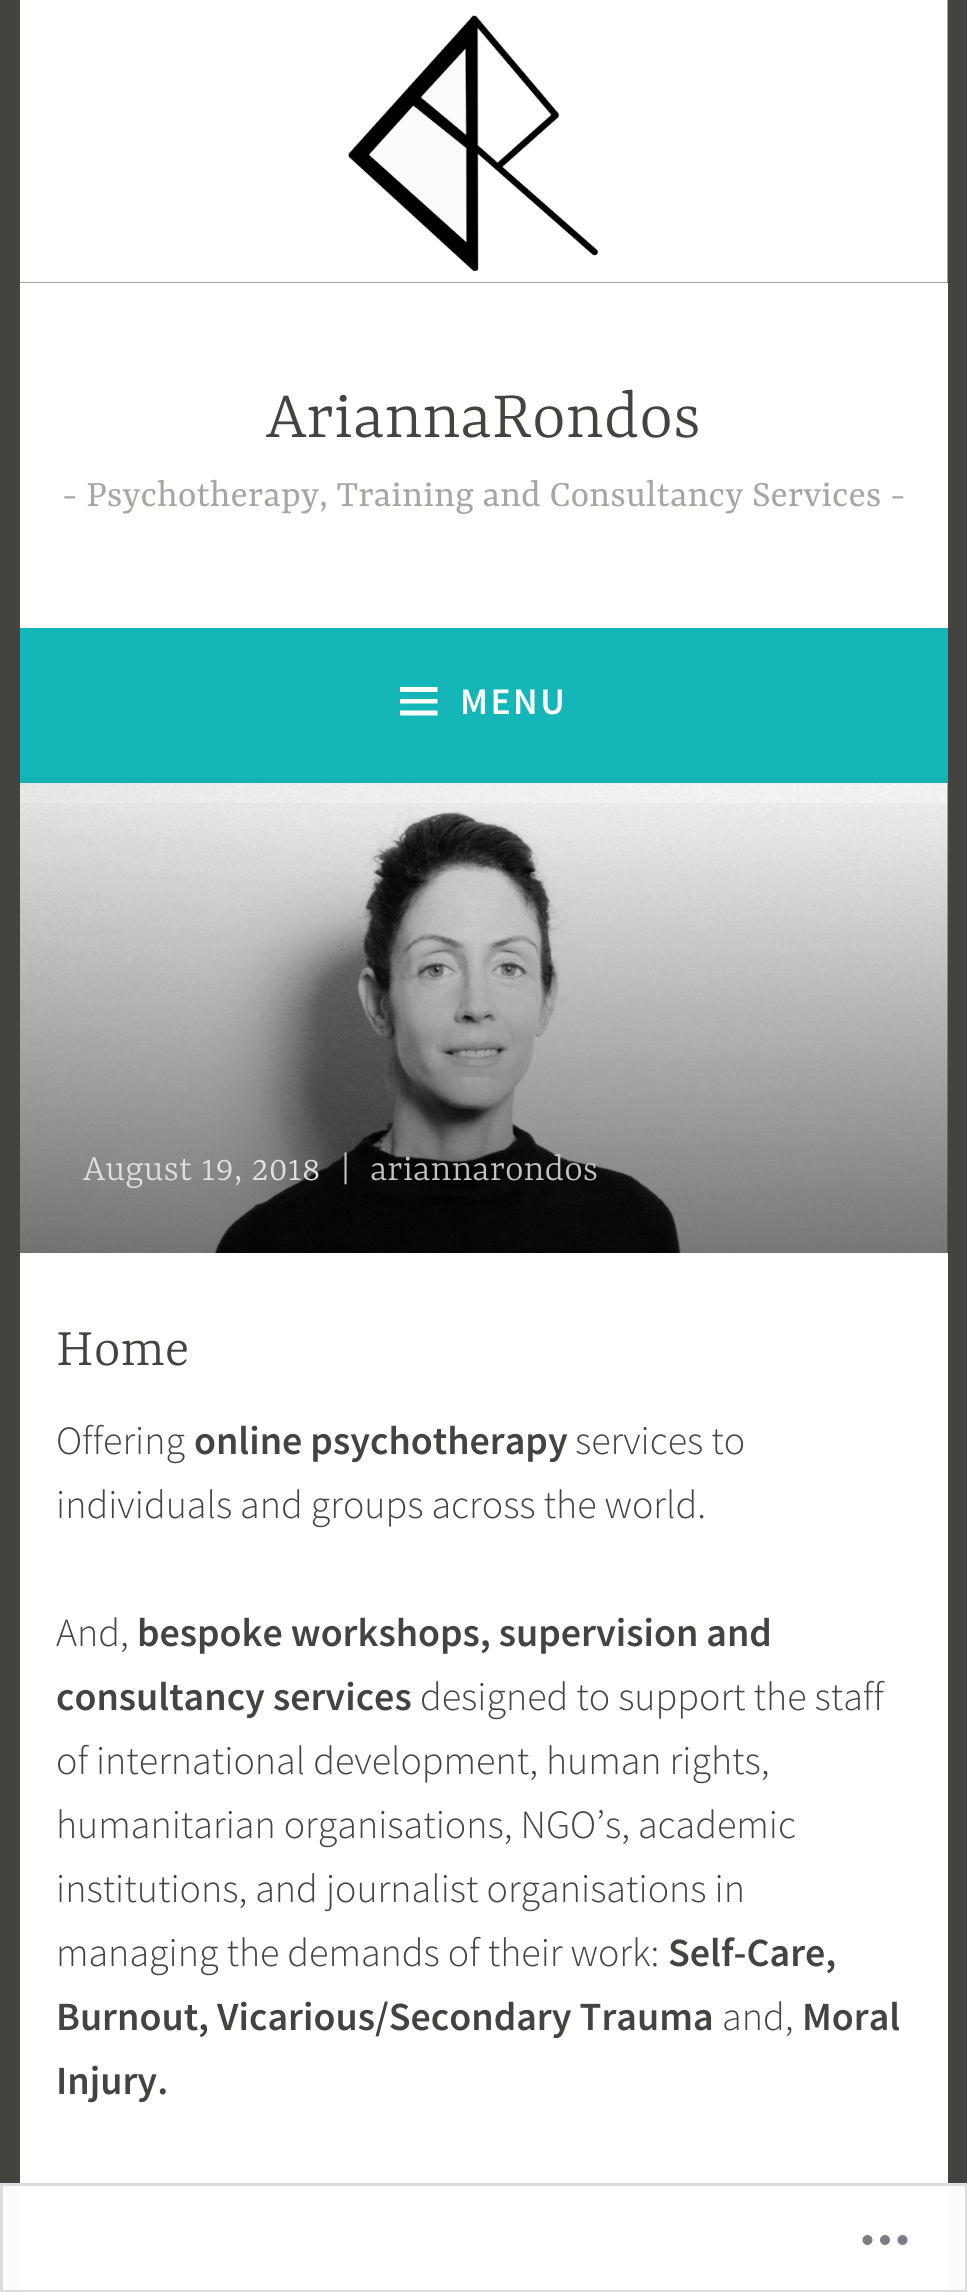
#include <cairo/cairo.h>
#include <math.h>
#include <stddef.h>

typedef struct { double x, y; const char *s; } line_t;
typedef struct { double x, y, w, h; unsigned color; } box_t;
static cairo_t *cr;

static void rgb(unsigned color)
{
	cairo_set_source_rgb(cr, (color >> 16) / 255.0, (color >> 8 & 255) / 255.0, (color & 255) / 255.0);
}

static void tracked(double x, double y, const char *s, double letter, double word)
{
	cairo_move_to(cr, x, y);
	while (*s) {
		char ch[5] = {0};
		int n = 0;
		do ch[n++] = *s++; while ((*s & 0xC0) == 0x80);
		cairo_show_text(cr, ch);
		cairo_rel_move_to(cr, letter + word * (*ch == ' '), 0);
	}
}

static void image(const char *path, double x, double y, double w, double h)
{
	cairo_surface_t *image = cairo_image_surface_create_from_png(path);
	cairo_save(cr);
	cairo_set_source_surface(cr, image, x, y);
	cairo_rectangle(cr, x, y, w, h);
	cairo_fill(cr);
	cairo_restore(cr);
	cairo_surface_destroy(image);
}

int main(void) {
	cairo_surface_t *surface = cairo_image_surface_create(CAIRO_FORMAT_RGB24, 967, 2292);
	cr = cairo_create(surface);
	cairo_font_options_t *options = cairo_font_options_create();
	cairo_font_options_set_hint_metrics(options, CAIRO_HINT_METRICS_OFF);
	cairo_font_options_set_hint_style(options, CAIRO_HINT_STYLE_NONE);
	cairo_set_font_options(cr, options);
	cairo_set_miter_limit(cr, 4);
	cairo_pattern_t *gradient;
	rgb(0x444340);
	cairo_paint(cr);
	rgb(0xfbfbfb);
	cairo_rectangle(cr, 0, 2183, 967, 109);
	cairo_fill(cr);
	image("img/1.png", 20, 0, 928, 283);
	{
		static const box_t items[] = {
			{20, 283, 928, 345, 0xffffff},
			{20, 628, 928, 150, 0x15b6b8},
			{20, 778, 928, 5, 0x14b1b2},
		};
		for (size_t i = 0; i < sizeof items / sizeof *items; i++) {
			rgb(items[i].color);
			cairo_rectangle(cr, items[i].x, items[i].y, items[i].w, items[i].h);
			cairo_fill(cr);
		}
	}
	rgb(0xffffff);
	cairo_new_path(cr);
	cairo_move_to(cr, 400, 715.5);
	cairo_line_to(cr, 400, 710.5);
	cairo_line_to(cr, 437.5, 710.5);
	cairo_line_to(cr, 437.5, 715.5);
	cairo_close_path(cr);
	cairo_move_to(cr, 400, 687);
	cairo_line_to(cr, 437.5, 687);
	cairo_line_to(cr, 437.5, 692);
	cairo_line_to(cr, 400, 692);
	cairo_close_path(cr);
	cairo_move_to(cr, 400, 703.5);
	cairo_line_to(cr, 400, 699);
	cairo_line_to(cr, 437.5, 699);
	cairo_line_to(cr, 437.5, 703.5);
	cairo_close_path(cr);
	cairo_fill(cr);
	rgb(0x595854);
	cairo_rectangle(cr, 947, 783, 1, 470);
	cairo_fill(cr);
	image("img/2.png", 20, 783, 928, 470);
	gradient = cairo_pattern_create_linear(484, 783, 484, 1253);
	cairo_pattern_add_color_stop_rgba(gradient, 0, 0, 0, 0, 0);
	cairo_pattern_add_color_stop_rgba(gradient, 1, 0, 0, 0, 0.5);
	cairo_set_source(cr, gradient);
	cairo_pattern_destroy(gradient);
	cairo_rectangle(cr, 20, 803, 928, 450);
	cairo_fill(cr);
	rgb(0xffffff);
	cairo_rectangle(cr, 20, 1253, 928, 1039);
	cairo_fill(cr);
	cairo_rectangle(cr, 1.5, 2184.5, 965, 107);
	cairo_set_source_rgba(cr, 0.863, 0.863, 0.871, 0.98);
	cairo_set_line_width(cr, 3);
	cairo_stroke(cr);
	image("img/3.png", 862, 2235, 46, 10);
	cairo_select_font_face(cr, "Yrsa Light", CAIRO_FONT_SLANT_NORMAL, CAIRO_FONT_WEIGHT_NORMAL);
	cairo_set_font_size(cr, 72.5);
	rgb(0x444340);
	cairo_move_to(cr, 266, 437);
	cairo_show_text(cr, "AriannaRondos");
	cairo_select_font_face(cr, "Yrsa", CAIRO_FONT_SLANT_NORMAL, CAIRO_FONT_WEIGHT_NORMAL);
	cairo_set_font_size(cr, 40);
	rgb(0xa8a6a1);
	cairo_move_to(cr, 62, 506);
	cairo_show_text(cr, "- Psychotherapy, Training and Consultancy Services -");
	cairo_select_font_face(cr, "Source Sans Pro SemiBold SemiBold", CAIRO_FONT_SLANT_NORMAL, CAIRO_FONT_WEIGHT_NORMAL);
	cairo_set_font_size(cr, 37.5);
	rgb(0xffffff);
	tracked(460, 714, "MENU", 2.5, 0);
	cairo_select_font_face(cr, "Yrsa Light", CAIRO_FONT_SLANT_NORMAL, CAIRO_FONT_WEIGHT_NORMAL);
	cairo_set_font_size(cr, 40);
	rgb(0xdfdfdf);
	cairo_move_to(cr, 83, 1180);
	cairo_show_text(cr, "August 19, 2018");
	rgb(0xc3c3c3);
	cairo_move_to(cr, 341, 1180);
	cairo_show_text(cr, "|");
	cairo_move_to(cr, 370, 1180);
	cairo_show_text(cr, "ariannarondos");
	cairo_set_font_size(cr, 57.5);
	rgb(0x444340);
	cairo_move_to(cr, 56, 1365);
	cairo_show_text(cr, "Home");
	cairo_select_font_face(cr, "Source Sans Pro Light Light", CAIRO_FONT_SLANT_NORMAL, CAIRO_FONT_WEIGHT_NORMAL);
	cairo_set_font_size(cr, 40);
	cairo_move_to(cr, 56, 1454);
	cairo_show_text(cr, "Offering");
	cairo_select_font_face(cr, "Source Sans Pro SemiBold SemiBold", CAIRO_FONT_SLANT_NORMAL, CAIRO_FONT_WEIGHT_NORMAL);
	cairo_move_to(cr, 194, 1454);
	cairo_show_text(cr, "online psychotherapy");
	cairo_select_font_face(cr, "Source Sans Pro Light Light", CAIRO_FONT_SLANT_NORMAL, CAIRO_FONT_WEIGHT_NORMAL);
	{
		static const line_t items[] = {
			{575, 1454, "services to"},
			{56, 1518, "individuals and groups across the world."},
			{56, 1646, "And,"},
		};
		for (size_t i = 0; i < sizeof items / sizeof *items; i++) {
			cairo_move_to(cr, items[i].x, items[i].y);
			cairo_show_text(cr, items[i].s);
		}
	}
	cairo_select_font_face(cr, "Source Sans Pro SemiBold SemiBold", CAIRO_FONT_SLANT_NORMAL, CAIRO_FONT_WEIGHT_NORMAL);
	cairo_move_to(cr, 137, 1646);
	cairo_show_text(cr, "bespoke workshops, supervision and");
	cairo_move_to(cr, 56, 1710);
	cairo_show_text(cr, "consultancy services");
	cairo_select_font_face(cr, "Source Sans Pro Light Light", CAIRO_FONT_SLANT_NORMAL, CAIRO_FONT_WEIGHT_NORMAL);
	{
		static const line_t items[] = {
			{420, 1710, "designed to support the staff"},
			{56, 1774, "of international development, human rights,"},
			{56, 1838, "humanitarian organisations, NGO’s, academic"},
			{56, 1902, "institutions, and journalist organisations in"},
			{56, 1966, "managing the demands of their work:"},
		};
		for (size_t i = 0; i < sizeof items / sizeof *items; i++) {
			cairo_move_to(cr, items[i].x, items[i].y);
			cairo_show_text(cr, items[i].s);
		}
	}
	cairo_select_font_face(cr, "Source Sans Pro SemiBold SemiBold", CAIRO_FONT_SLANT_NORMAL, CAIRO_FONT_WEIGHT_NORMAL);
	cairo_move_to(cr, 668, 1966);
	cairo_show_text(cr, "Self-Care,");
	cairo_move_to(cr, 56, 2030);
	cairo_show_text(cr, "Burnout, Vicarious/Secondary Trauma");
	cairo_select_font_face(cr, "Source Sans Pro Light Light", CAIRO_FONT_SLANT_NORMAL, CAIRO_FONT_WEIGHT_NORMAL);
	cairo_move_to(cr, 722, 2030);
	cairo_show_text(cr, "and,");
	cairo_select_font_face(cr, "Source Sans Pro SemiBold SemiBold", CAIRO_FONT_SLANT_NORMAL, CAIRO_FONT_WEIGHT_NORMAL);
	cairo_move_to(cr, 802, 2030);
	cairo_show_text(cr, "Moral");
	cairo_move_to(cr, 56, 2094);
	cairo_show_text(cr, "Injury.");
	cairo_surface_write_to_png(surface, "page.png");
	cairo_font_options_destroy(options);
	cairo_destroy(cr);
	cairo_surface_destroy(surface);
	return 0;
}
